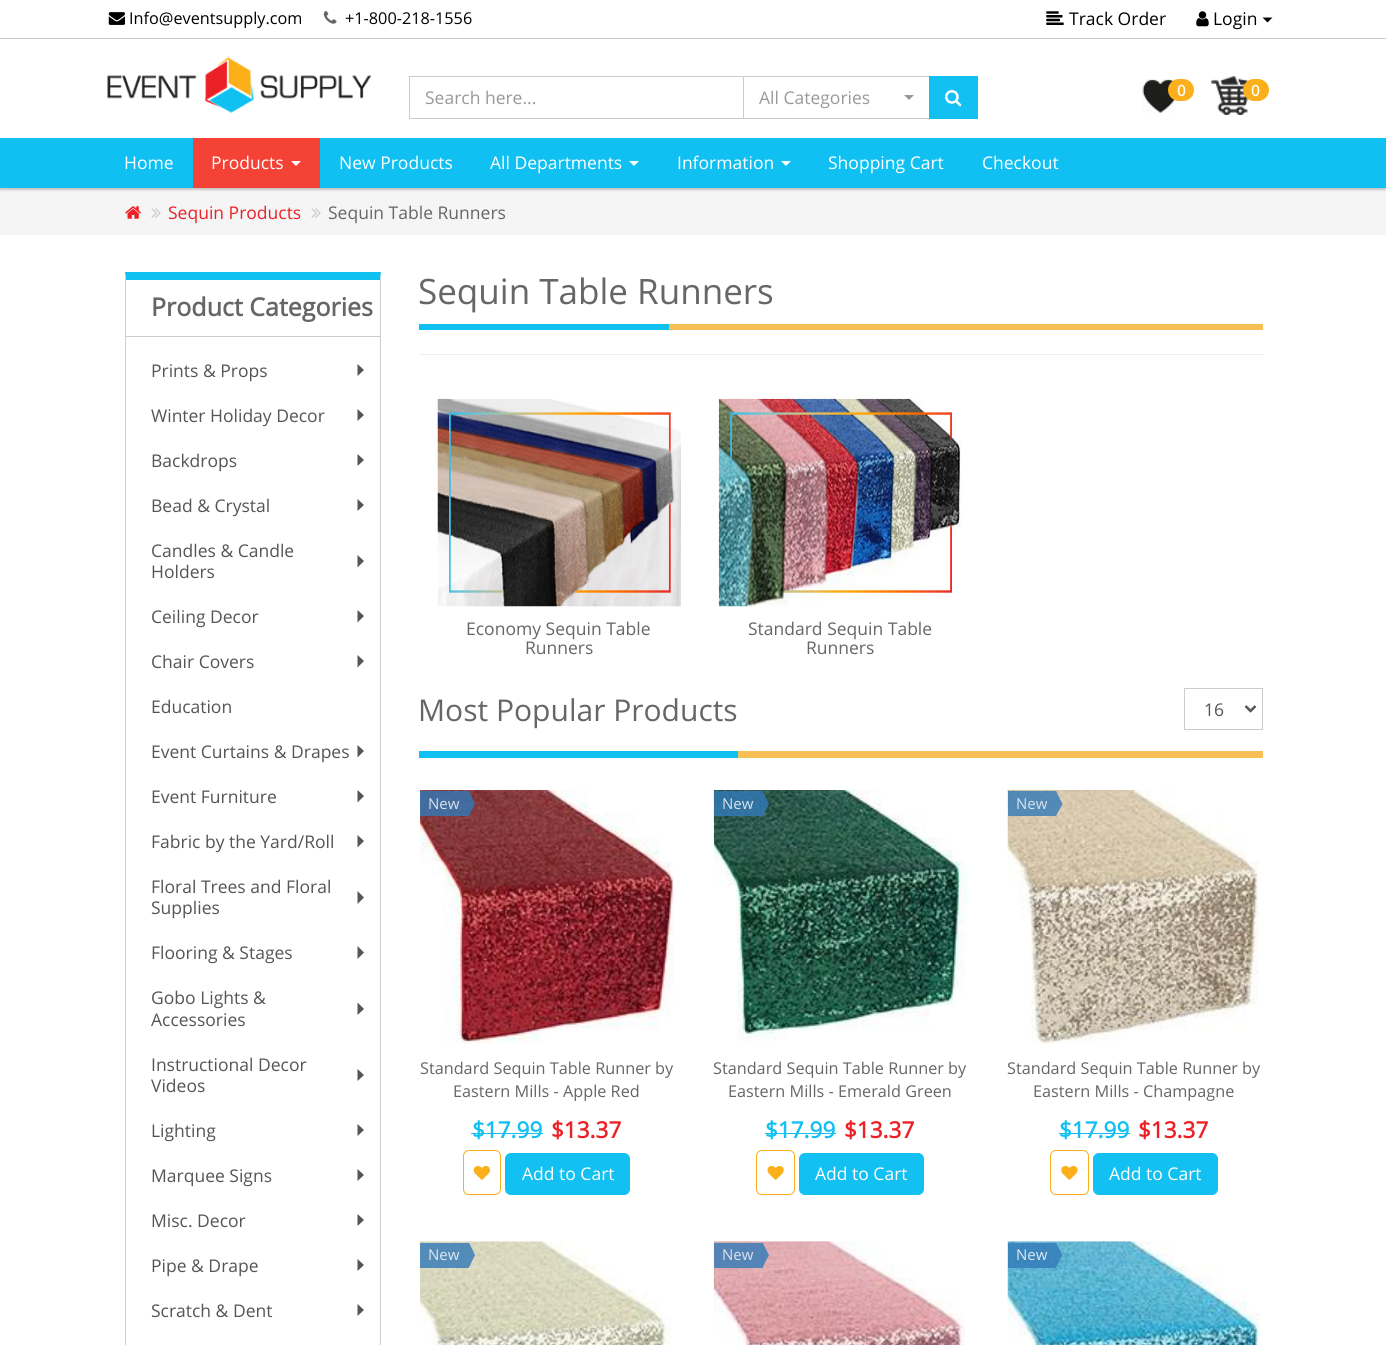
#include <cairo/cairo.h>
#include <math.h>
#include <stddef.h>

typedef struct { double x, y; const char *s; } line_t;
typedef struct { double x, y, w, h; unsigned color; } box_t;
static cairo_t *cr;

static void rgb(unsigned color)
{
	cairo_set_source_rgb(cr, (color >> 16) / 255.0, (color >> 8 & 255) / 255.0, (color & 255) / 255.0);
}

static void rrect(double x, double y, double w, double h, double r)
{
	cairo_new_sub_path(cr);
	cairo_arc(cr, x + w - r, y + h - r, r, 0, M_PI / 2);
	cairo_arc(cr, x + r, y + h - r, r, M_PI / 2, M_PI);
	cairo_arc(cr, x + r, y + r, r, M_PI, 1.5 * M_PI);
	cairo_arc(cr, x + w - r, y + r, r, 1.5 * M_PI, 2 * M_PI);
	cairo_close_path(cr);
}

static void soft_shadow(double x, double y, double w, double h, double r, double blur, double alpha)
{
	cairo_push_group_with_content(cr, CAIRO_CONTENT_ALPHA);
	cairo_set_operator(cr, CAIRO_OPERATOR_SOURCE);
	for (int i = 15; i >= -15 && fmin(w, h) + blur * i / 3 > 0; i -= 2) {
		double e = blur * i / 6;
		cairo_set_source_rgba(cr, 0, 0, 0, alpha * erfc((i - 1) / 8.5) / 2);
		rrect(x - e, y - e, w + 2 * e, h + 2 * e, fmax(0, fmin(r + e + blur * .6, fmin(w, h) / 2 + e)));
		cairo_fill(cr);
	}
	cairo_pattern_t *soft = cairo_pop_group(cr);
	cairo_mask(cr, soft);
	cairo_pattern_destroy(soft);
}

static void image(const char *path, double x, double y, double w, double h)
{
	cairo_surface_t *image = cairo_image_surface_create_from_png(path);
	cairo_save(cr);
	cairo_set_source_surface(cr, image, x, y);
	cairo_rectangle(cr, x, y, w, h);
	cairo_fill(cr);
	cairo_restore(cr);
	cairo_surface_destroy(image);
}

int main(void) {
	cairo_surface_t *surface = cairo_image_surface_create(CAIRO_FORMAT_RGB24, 1386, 1345);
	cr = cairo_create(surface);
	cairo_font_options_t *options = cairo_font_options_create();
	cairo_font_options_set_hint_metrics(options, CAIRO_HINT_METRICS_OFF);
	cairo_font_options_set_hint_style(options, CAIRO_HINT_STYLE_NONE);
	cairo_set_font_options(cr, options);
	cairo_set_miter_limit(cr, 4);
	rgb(0xffffff);
	cairo_paint(cr);
	rgb(0xcccccc);
	cairo_rectangle(cr, 0, 38, 1386, 1);
	cairo_fill(cr);
	image("img/1.png", 108, 12, 17, 13);
	image("img/2.png", 323, 11, 14, 13);
	image("img/3.png", 1046, 11, 18, 14);
	image("img/4.png", 1196, 11, 13, 16);
	rgb(0x000000);
	cairo_new_path(cr);
	cairo_move_to(cr, 1262.5, 17.5);
	cairo_line_to(cr, 1272.5, 17.5);
	cairo_line_to(cr, 1267.5, 22.5);
	cairo_close_path(cr);
	cairo_fill(cr);
	image("img/5.png", 107, 57, 265, 56);
	cairo_rectangle(cr, 409.5, 76.5, 334, 42);
	rgb(0xcccccc);
	cairo_set_line_width(cr, 1);
	cairo_stroke(cr);
	cairo_rectangle(cr, 743.5, 76.5, 186, 42);
	cairo_stroke(cr);
	rgb(0x999999);
	cairo_new_path(cr);
	cairo_move_to(cr, 904, 95);
	cairo_line_to(cr, 914, 95);
	cairo_line_to(cr, 909, 100);
	cairo_close_path(cr);
	cairo_fill(cr);
	rgb(0x12c0f1);
	cairo_rectangle(cr, 929, 76, 49, 43);
	cairo_fill(cr);
	image("img/6.png", 945, 90, 17, 17);
	image("img/7.png", 1142, 79, 33, 34);
	rgb(0xfbaf1a);
	rrect(1168, 79, 26, 22, 11);
	cairo_fill(cr);
	image("img/8.png", 1211, 76, 37, 39);
	rrect(1243, 79, 26, 22, 11);
	cairo_fill(cr);
	rgb(0xf5f5f5);
	cairo_rectangle(cr, 0, 188, 1386, 47);
	cairo_fill(cr);
	rgb(0x000000);
	soft_shadow(0, 140, 1386, 50, 0, 1, 0.2);
	rgb(0x11c0f2);
	cairo_rectangle(cr, 0, 138, 1386, 50);
	cairo_fill(cr);
	rgb(0xf44336);
	cairo_rectangle(cr, 193, 138, 127, 50);
	cairo_fill(cr);
	rgb(0xffffff);
	cairo_new_path(cr);
	cairo_move_to(cr, 291, 161);
	cairo_line_to(cr, 301, 161);
	cairo_line_to(cr, 296, 166);
	cairo_close_path(cr);
	cairo_fill(cr);
	cairo_new_path(cr);
	cairo_move_to(cr, 629, 161);
	cairo_line_to(cr, 639, 161);
	cairo_line_to(cr, 634, 166);
	cairo_close_path(cr);
	cairo_fill(cr);
	cairo_new_path(cr);
	cairo_move_to(cr, 781, 161);
	cairo_line_to(cr, 791, 161);
	cairo_line_to(cr, 786, 166);
	cairo_close_path(cr);
	cairo_fill(cr);
	image("img/9.png", 125, 206, 16, 13);
	image("img/10.png", 151, 208, 10, 10);
	image("img/10.png", 311, 208, 10, 10);
	rgb(0x10c0f1);
	cairo_new_path(cr);
	cairo_move_to(cr, 125, 272);
	cairo_line_to(cr, 381, 272);
	cairo_line_to(cr, 380, 280);
	cairo_line_to(cr, 126, 280);
	cairo_close_path(cr);
	cairo_fill(cr);
	rgb(0xcfcfcf);
	cairo_new_path(cr);
	cairo_move_to(cr, 381, 272);
	cairo_line_to(cr, 381, 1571);
	cairo_line_to(cr, 380, 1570);
	cairo_line_to(cr, 380, 280);
	cairo_close_path(cr);
	cairo_fill(cr);
	cairo_new_path(cr);
	cairo_move_to(cr, 125, 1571);
	cairo_line_to(cr, 125, 272);
	cairo_line_to(cr, 126, 280);
	cairo_line_to(cr, 126, 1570);
	cairo_close_path(cr);
	cairo_fill(cr);
	rgb(0xcccccc);
	cairo_rectangle(cr, 126, 336, 254, 1);
	cairo_fill(cr);
	rgb(0x555555);
	cairo_new_path(cr);
	cairo_move_to(cr, 357.5, 376);
	cairo_line_to(cr, 357.5, 364);
	cairo_line_to(cr, 364, 370);
	cairo_close_path(cr);
	cairo_fill(cr);
	cairo_new_path(cr);
	cairo_move_to(cr, 357.5, 421);
	cairo_line_to(cr, 357.5, 409);
	cairo_line_to(cr, 364, 415);
	cairo_close_path(cr);
	cairo_fill(cr);
	cairo_new_path(cr);
	cairo_move_to(cr, 357.5, 466);
	cairo_line_to(cr, 357.5, 454);
	cairo_line_to(cr, 364, 460);
	cairo_close_path(cr);
	cairo_fill(cr);
	cairo_new_path(cr);
	cairo_move_to(cr, 357.5, 511);
	cairo_line_to(cr, 357.5, 499);
	cairo_line_to(cr, 364, 505);
	cairo_close_path(cr);
	cairo_fill(cr);
	cairo_new_path(cr);
	cairo_move_to(cr, 357.5, 567.5);
	cairo_line_to(cr, 357.5, 555);
	cairo_line_to(cr, 364, 561);
	cairo_close_path(cr);
	cairo_fill(cr);
	cairo_new_path(cr);
	cairo_move_to(cr, 357.5, 622.5);
	cairo_line_to(cr, 357.5, 610);
	cairo_line_to(cr, 364, 616);
	cairo_close_path(cr);
	cairo_fill(cr);
	cairo_new_path(cr);
	cairo_move_to(cr, 357.5, 667.5);
	cairo_line_to(cr, 357.5, 655);
	cairo_line_to(cr, 364, 661);
	cairo_close_path(cr);
	cairo_fill(cr);
	cairo_new_path(cr);
	cairo_move_to(cr, 357.5, 757.5);
	cairo_line_to(cr, 357.5, 745);
	cairo_line_to(cr, 364, 751);
	cairo_close_path(cr);
	cairo_fill(cr);
	cairo_new_path(cr);
	cairo_move_to(cr, 357.5, 802.5);
	cairo_line_to(cr, 357.5, 790);
	cairo_line_to(cr, 364, 796);
	cairo_close_path(cr);
	cairo_fill(cr);
	cairo_new_path(cr);
	cairo_move_to(cr, 357.5, 847.5);
	cairo_line_to(cr, 357.5, 835);
	cairo_line_to(cr, 364, 841);
	cairo_close_path(cr);
	cairo_fill(cr);
	cairo_new_path(cr);
	cairo_move_to(cr, 357.5, 904);
	cairo_line_to(cr, 357.5, 891);
	cairo_line_to(cr, 364, 897.5);
	cairo_close_path(cr);
	cairo_fill(cr);
	cairo_new_path(cr);
	cairo_move_to(cr, 357.5, 959);
	cairo_line_to(cr, 357.5, 946);
	cairo_line_to(cr, 364, 952.5);
	cairo_close_path(cr);
	cairo_fill(cr);
	cairo_new_path(cr);
	cairo_move_to(cr, 357.5, 1015);
	cairo_line_to(cr, 357.5, 1002.5);
	cairo_line_to(cr, 364, 1009);
	cairo_close_path(cr);
	cairo_fill(cr);
	cairo_new_path(cr);
	cairo_move_to(cr, 357.5, 1081);
	cairo_line_to(cr, 357.5, 1069);
	cairo_line_to(cr, 364, 1075);
	cairo_close_path(cr);
	cairo_fill(cr);
	cairo_new_path(cr);
	cairo_move_to(cr, 357.5, 1136);
	cairo_line_to(cr, 357.5, 1124);
	cairo_line_to(cr, 364, 1130);
	cairo_close_path(cr);
	cairo_fill(cr);
	cairo_new_path(cr);
	cairo_move_to(cr, 357.5, 1181);
	cairo_line_to(cr, 357.5, 1169);
	cairo_line_to(cr, 364, 1175);
	cairo_close_path(cr);
	cairo_fill(cr);
	cairo_new_path(cr);
	cairo_move_to(cr, 357.5, 1226);
	cairo_line_to(cr, 357.5, 1214);
	cairo_line_to(cr, 364, 1220);
	cairo_close_path(cr);
	cairo_fill(cr);
	cairo_new_path(cr);
	cairo_move_to(cr, 357.5, 1271);
	cairo_line_to(cr, 357.5, 1259);
	cairo_line_to(cr, 364, 1265);
	cairo_close_path(cr);
	cairo_fill(cr);
	cairo_new_path(cr);
	cairo_move_to(cr, 357.5, 1316);
	cairo_line_to(cr, 357.5, 1304);
	cairo_line_to(cr, 364, 1310);
	cairo_close_path(cr);
	cairo_fill(cr);
	{
		static const box_t items[] = {
			{419, 354, 844, 1, 0xeeeeee},
			{669, 324, 594, 6, 0xf6c056},
			{419, 324, 250, 6, 0x11c0f2},
		};
		for (size_t i = 0; i < sizeof items / sizeof *items; i++) {
			rgb(items[i].color);
			cairo_rectangle(cr, items[i].x, items[i].y, items[i].w, items[i].h);
			cairo_fill(cr);
		}
	}
	image("img/11.png", 437, 398, 244, 209);
	image("img/12.png", 718, 398, 244, 209);
	rgb(0xf6c056);
	cairo_rectangle(cr, 738, 751, 525, 7);
	cairo_fill(cr);
	rgb(0x11c0f2);
	cairo_rectangle(cr, 419, 751, 319, 7);
	cairo_fill(cr);
	cairo_rectangle(cr, 1184.5, 688.5, 78, 41);
	rgb(0xcccccc);
	cairo_stroke(cr);
	cairo_new_path(cr);
	cairo_move_to(cr, 1245.5, 706);
	cairo_line_to(cr, 1250.5, 711);
	cairo_line_to(cr, 1255.5, 706);
	rgb(0x555555);
	cairo_set_line_width(cr, 2.5);
	cairo_stroke(cr);
	image("img/13.png", 420, 790, 254, 254);
	cairo_set_source_rgba(cr, 0.2, 0.478, 0.718, 0.8);
	cairo_rectangle(cr, 420, 791, 49, 25);
	cairo_fill(cr);
	cairo_new_path(cr);
	cairo_move_to(cr, 469, 816);
	cairo_line_to(cr, 469, 791);
	cairo_line_to(cr, 475, 804);
	cairo_close_path(cr);
	cairo_fill(cr);
	rgb(0x12c0f1);
	cairo_rectangle(cr, 471, 1133, 72, 1);
	cairo_fill(cr);
	rrect(463.5, 1150.5, 37, 44, 5.5);
	rgb(0xfbaf1a);
	cairo_set_line_width(cr, 1);
	cairo_stroke(cr);
	image("img/14.png", 473, 1166, 17, 14);
	rgb(0x12c0f1);
	rrect(505.5, 1153.5, 124, 41, 5.5);
	cairo_fill_preserve(cr);
	cairo_stroke(cr);
	image("img/15.png", 713, 790, 255, 251);
	cairo_set_source_rgba(cr, 0.2, 0.478, 0.718, 0.8);
	cairo_rectangle(cr, 714, 791, 49, 25);
	cairo_fill(cr);
	cairo_new_path(cr);
	cairo_move_to(cr, 762.5, 816);
	cairo_line_to(cr, 762.5, 791);
	cairo_line_to(cr, 769, 804);
	cairo_close_path(cr);
	cairo_fill(cr);
	rgb(0x12c0f1);
	cairo_rectangle(cr, 765, 1133, 71, 1);
	cairo_fill(cr);
	rrect(756.5, 1150.5, 38, 44, 5.5);
	rgb(0xfbaf1a);
	cairo_stroke(cr);
	image("img/16.png", 767, 1166, 17, 14);
	rgb(0x12c0f1);
	rrect(799.5, 1153.5, 124, 41, 5.5);
	cairo_fill_preserve(cr);
	cairo_stroke(cr);
	image("img/17.png", 1007, 790, 254, 254);
	cairo_set_source_rgba(cr, 0.2, 0.478, 0.718, 0.8);
	cairo_rectangle(cr, 1008, 791, 48, 25);
	cairo_fill(cr);
	cairo_new_path(cr);
	cairo_move_to(cr, 1056, 816);
	cairo_line_to(cr, 1056, 791);
	cairo_line_to(cr, 1062.5, 804);
	cairo_close_path(cr);
	cairo_fill(cr);
	rgb(0x12c0f1);
	cairo_rectangle(cr, 1059, 1133, 71, 1);
	cairo_fill(cr);
	rrect(1050.5, 1150.5, 38, 44, 5.5);
	rgb(0xfbaf1a);
	cairo_stroke(cr);
	image("img/18.png", 1061, 1166, 17, 14);
	rgb(0x12c0f1);
	rrect(1093.5, 1153.5, 124, 41, 5.5);
	cairo_fill_preserve(cr);
	cairo_stroke(cr);
	image("img/19.png", 420, 1241, 251, 104);
	cairo_set_source_rgba(cr, 0.2, 0.478, 0.718, 0.8);
	cairo_rectangle(cr, 420, 1243, 49, 25);
	cairo_fill(cr);
	cairo_new_path(cr);
	cairo_move_to(cr, 469, 1267.5);
	cairo_line_to(cr, 469, 1242.5);
	cairo_line_to(cr, 475, 1255);
	cairo_close_path(cr);
	cairo_fill(cr);
	image("img/20.png", 713, 1241, 252, 104);
	cairo_rectangle(cr, 714, 1243, 49, 25);
	cairo_fill(cr);
	cairo_new_path(cr);
	cairo_move_to(cr, 762.5, 1267.5);
	cairo_line_to(cr, 762.5, 1242.5);
	cairo_line_to(cr, 769, 1255);
	cairo_close_path(cr);
	cairo_fill(cr);
	image("img/21.png", 1007, 1241, 254, 104);
	cairo_rectangle(cr, 1008, 1243, 48, 25);
	cairo_fill(cr);
	cairo_new_path(cr);
	cairo_move_to(cr, 1056, 1267.5);
	cairo_line_to(cr, 1056, 1242.5);
	cairo_line_to(cr, 1062.5, 1255);
	cairo_close_path(cr);
	cairo_fill(cr);
	cairo_select_font_face(cr, "Open Sans", CAIRO_FONT_SLANT_NORMAL, CAIRO_FONT_WEIGHT_NORMAL);
	cairo_set_font_size(cr, 16.25);
	rgb(0x000000);
	cairo_move_to(cr, 129, 24);
	cairo_show_text(cr, "Info@eventsupply.com");
	cairo_move_to(cr, 345, 24);
	cairo_show_text(cr, "+1-800-218-1556");
	cairo_set_font_size(cr, 17.5);
	cairo_move_to(cr, 1069, 25);
	cairo_show_text(cr, "Track Order");
	cairo_move_to(cr, 1213, 25);
	cairo_show_text(cr, "Login");
	rgb(0x999999);
	cairo_move_to(cr, 425, 104);
	cairo_show_text(cr, "Search here...");
	cairo_move_to(cr, 759, 104);
	cairo_show_text(cr, "All Categories");
	cairo_select_font_face(cr, "Open Sans", CAIRO_FONT_SLANT_NORMAL, CAIRO_FONT_WEIGHT_BOLD);
	cairo_set_font_size(cr, 15);
	rgb(0xffffff);
	cairo_move_to(cr, 1177, 96);
	cairo_show_text(cr, "0");
	cairo_move_to(cr, 1251, 96);
	cairo_show_text(cr, "0");
	cairo_select_font_face(cr, "Open Sans", CAIRO_FONT_SLANT_NORMAL, CAIRO_FONT_WEIGHT_NORMAL);
	cairo_set_font_size(cr, 17.5);
	{
		static const line_t items[] = {
			{124, 169, "Home"},
			{211, 169, "Products"},
			{339, 169, "New Products"},
			{490, 169, "All Departments"},
			{677, 169, "Information"},
			{828, 169, "Shopping Cart"},
			{982, 169, "Checkout"},
		};
		for (size_t i = 0; i < sizeof items / sizeof *items; i++) {
			cairo_move_to(cr, items[i].x, items[i].y);
			cairo_show_text(cr, items[i].s);
		}
	}
	rgb(0xec2127);
	cairo_move_to(cr, 168, 219);
	cairo_show_text(cr, "Sequin Products");
	rgb(0x666666);
	cairo_move_to(cr, 328, 219);
	cairo_show_text(cr, "Sequin Table Runners");
	cairo_select_font_face(cr, "Open Sans", CAIRO_FONT_SLANT_NORMAL, CAIRO_FONT_WEIGHT_BOLD);
	cairo_set_font_size(cr, 25);
	cairo_move_to(cr, 151, 316);
	cairo_show_text(cr, "Product Categories");
	cairo_select_font_face(cr, "Open Sans", CAIRO_FONT_SLANT_NORMAL, CAIRO_FONT_WEIGHT_NORMAL);
	cairo_set_font_size(cr, 17.5);
	rgb(0x555555);
	{
		static const line_t items[] = {
			{151, 377, "Prints & Props"},
			{151, 422, "Winter Holiday Decor"},
			{151, 467, "Backdrops"},
			{151, 512, "Bead & Crystal"},
			{151, 557, "Candles & Candle"},
			{151, 578, "Holders"},
			{151, 623, "Ceiling Decor"},
			{151, 668, "Chair Covers"},
			{151, 713, "Education"},
			{151, 758, "Event Curtains & Drapes"},
			{151, 803, "Event Furniture"},
			{151, 848, "Fabric by the Yard/Roll"},
			{151, 893, "Floral Trees and Floral"},
			{151, 914, "Supplies"},
			{151, 959, "Flooring & Stages"},
			{151, 1004, "Gobo Lights &"},
			{151, 1026, "Accessories"},
			{151, 1071, "Instructional Decor"},
			{151, 1092, "Videos"},
			{151, 1137, "Lighting"},
			{151, 1182, "Marquee Signs"},
			{151, 1227, "Misc. Decor"},
			{151, 1272, "Pipe & Drape"},
			{151, 1317, "Scratch & Dent"},
		};
		for (size_t i = 0; i < sizeof items / sizeof *items; i++) {
			cairo_move_to(cr, items[i].x, items[i].y);
			cairo_show_text(cr, items[i].s);
		}
	}
	cairo_set_font_size(cr, 35);
	rgb(0x666666);
	cairo_move_to(cr, 418, 304);
	cairo_show_text(cr, "Sequin Table Runners");
	cairo_set_font_size(cr, 17.5);
	{
		static const line_t items[] = {
			{466, 635, "Economy Sequin Table"},
			{525, 654, "Runners"},
			{748, 635, "Standard Sequin Table"},
			{806, 654, "Runners"},
		};
		for (size_t i = 0; i < sizeof items / sizeof *items; i++) {
			cairo_move_to(cr, items[i].x, items[i].y);
			cairo_show_text(cr, items[i].s);
		}
	}
	cairo_set_font_size(cr, 30);
	cairo_move_to(cr, 418, 721);
	cairo_show_text(cr, "Most Popular Products");
	cairo_set_font_size(cr, 17.5);
	rgb(0x555555);
	cairo_move_to(cr, 1204, 716);
	cairo_show_text(cr, "16");
	cairo_set_font_size(cr, 15);
	rgb(0xd9e2ec);
	cairo_move_to(cr, 428, 809);
	cairo_show_text(cr, "New");
	cairo_set_font_size(cr, 16.25);
	rgb(0x666666);
	cairo_move_to(cr, 420, 1074);
	cairo_show_text(cr, "Standard Sequin Table Runner by");
	cairo_move_to(cr, 453, 1097);
	cairo_show_text(cr, "Eastern Mills - Apple Red");
	cairo_select_font_face(cr, "Open Sans", CAIRO_FONT_SLANT_NORMAL, CAIRO_FONT_WEIGHT_BOLD);
	cairo_set_font_size(cr, 22.5);
	rgb(0x12c0f1);
	cairo_move_to(cr, 472, 1138);
	cairo_show_text(cr, "$17.99");
	rgb(0xec2127);
	cairo_move_to(cr, 551, 1138);
	cairo_show_text(cr, "$13.37");
	cairo_select_font_face(cr, "Open Sans", CAIRO_FONT_SLANT_NORMAL, CAIRO_FONT_WEIGHT_NORMAL);
	cairo_set_font_size(cr, 17.5);
	rgb(0xffffff);
	cairo_move_to(cr, 522, 1180);
	cairo_show_text(cr, "Add to Cart");
	cairo_set_font_size(cr, 15);
	rgb(0xd9e2ec);
	cairo_move_to(cr, 722, 809);
	cairo_show_text(cr, "New");
	cairo_set_font_size(cr, 16.25);
	rgb(0x666666);
	cairo_move_to(cr, 713, 1074);
	cairo_show_text(cr, "Standard Sequin Table Runner by");
	cairo_move_to(cr, 728, 1097);
	cairo_show_text(cr, "Eastern Mills - Emerald Green");
	cairo_select_font_face(cr, "Open Sans", CAIRO_FONT_SLANT_NORMAL, CAIRO_FONT_WEIGHT_BOLD);
	cairo_set_font_size(cr, 22.5);
	rgb(0x12c0f1);
	cairo_move_to(cr, 765, 1138);
	cairo_show_text(cr, "$17.99");
	rgb(0xec2127);
	cairo_move_to(cr, 844, 1138);
	cairo_show_text(cr, "$13.37");
	cairo_select_font_face(cr, "Open Sans", CAIRO_FONT_SLANT_NORMAL, CAIRO_FONT_WEIGHT_NORMAL);
	cairo_set_font_size(cr, 17.5);
	rgb(0xffffff);
	cairo_move_to(cr, 815, 1180);
	cairo_show_text(cr, "Add to Cart");
	cairo_set_font_size(cr, 15);
	rgb(0xd9e2ec);
	cairo_move_to(cr, 1016, 809);
	cairo_show_text(cr, "New");
	cairo_set_font_size(cr, 16.25);
	rgb(0x666666);
	cairo_move_to(cr, 1007, 1074);
	cairo_show_text(cr, "Standard Sequin Table Runner by");
	cairo_move_to(cr, 1033, 1097);
	cairo_show_text(cr, "Eastern Mills - Champagne");
	cairo_select_font_face(cr, "Open Sans", CAIRO_FONT_SLANT_NORMAL, CAIRO_FONT_WEIGHT_BOLD);
	cairo_set_font_size(cr, 22.5);
	rgb(0x12c0f1);
	cairo_move_to(cr, 1059, 1138);
	cairo_show_text(cr, "$17.99");
	rgb(0xec2127);
	cairo_move_to(cr, 1138, 1138);
	cairo_show_text(cr, "$13.37");
	cairo_select_font_face(cr, "Open Sans", CAIRO_FONT_SLANT_NORMAL, CAIRO_FONT_WEIGHT_NORMAL);
	cairo_set_font_size(cr, 17.5);
	rgb(0xffffff);
	cairo_move_to(cr, 1109, 1180);
	cairo_show_text(cr, "Add to Cart");
	cairo_set_font_size(cr, 15);
	rgb(0xdde8f1);
	cairo_move_to(cr, 428, 1260);
	cairo_show_text(cr, "New");
	rgb(0xd9e2ec);
	cairo_move_to(cr, 722, 1260);
	cairo_show_text(cr, "New");
	rgb(0xdde8f1);
	cairo_move_to(cr, 1016, 1260);
	cairo_show_text(cr, "New");
	cairo_surface_write_to_png(surface, "page.png");
	cairo_font_options_destroy(options);
	cairo_destroy(cr);
	cairo_surface_destroy(surface);
	return 0;
}
